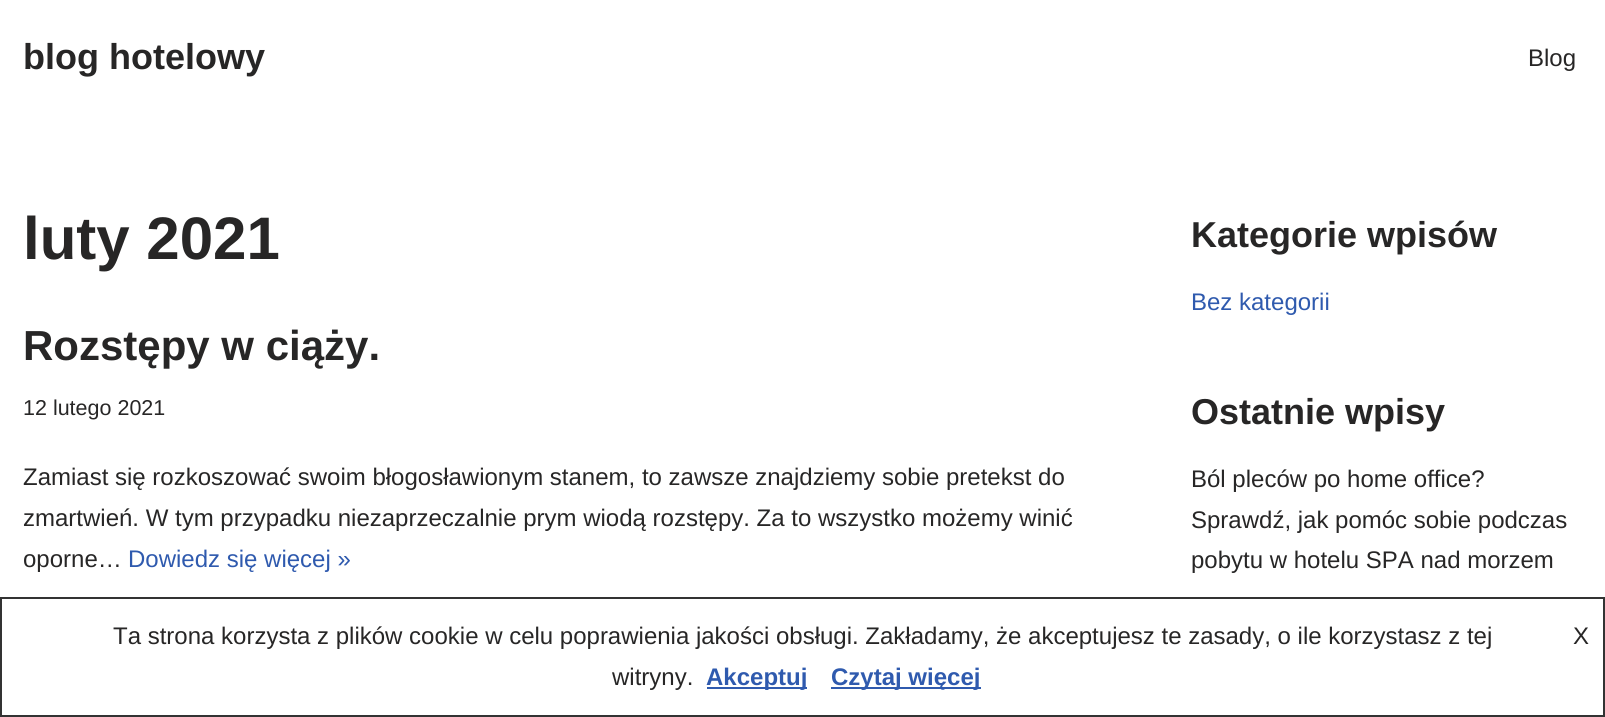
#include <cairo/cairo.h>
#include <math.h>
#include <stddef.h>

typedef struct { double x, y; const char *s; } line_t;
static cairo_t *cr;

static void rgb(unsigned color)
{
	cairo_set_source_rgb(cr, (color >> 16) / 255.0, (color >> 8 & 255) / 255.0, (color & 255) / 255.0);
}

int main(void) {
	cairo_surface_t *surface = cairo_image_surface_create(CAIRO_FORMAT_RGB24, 1605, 717);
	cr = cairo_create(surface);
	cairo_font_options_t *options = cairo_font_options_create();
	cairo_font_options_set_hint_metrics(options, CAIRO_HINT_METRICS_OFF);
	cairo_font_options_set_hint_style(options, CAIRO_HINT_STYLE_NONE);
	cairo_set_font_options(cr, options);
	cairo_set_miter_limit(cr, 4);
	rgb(0xffffff);
	cairo_paint(cr);
	cairo_rectangle(cr, 1, 598, 1603, 118);
	rgb(0x333333);
	cairo_stroke(cr);
	rgb(0x2f5aae);
	cairo_rectangle(cr, 707, 687, 100, 2);
	cairo_fill(cr);
	cairo_rectangle(cr, 831, 687, 150, 2);
	cairo_fill(cr);
	cairo_select_font_face(cr, "Liberation Sans", CAIRO_FONT_SLANT_NORMAL, CAIRO_FONT_WEIGHT_BOLD);
	cairo_set_font_size(cr, 36);
	rgb(0x272626);
	cairo_move_to(cr, 23, 69);
	cairo_show_text(cr, "blog hotelowy");
	cairo_select_font_face(cr, "Liberation Sans", CAIRO_FONT_SLANT_NORMAL, CAIRO_FONT_WEIGHT_NORMAL);
	cairo_set_font_size(cr, 24);
	cairo_move_to(cr, 1528, 66);
	cairo_show_text(cr, "Blog");
	cairo_select_font_face(cr, "Liberation Sans", CAIRO_FONT_SLANT_NORMAL, CAIRO_FONT_WEIGHT_BOLD);
	cairo_set_font_size(cr, 60);
	cairo_move_to(cr, 23, 259);
	cairo_show_text(cr, "luty 2021");
	cairo_set_font_size(cr, 42);
	cairo_move_to(cr, 23, 360);
	cairo_show_text(cr, "Rozstępy w ciąży.");
	cairo_select_font_face(cr, "Liberation Sans", CAIRO_FONT_SLANT_NORMAL, CAIRO_FONT_WEIGHT_NORMAL);
	cairo_set_font_size(cr, 21.5);
	cairo_move_to(cr, 23, 415);
	cairo_show_text(cr, "12 lutego 2021");
	cairo_set_font_size(cr, 24);
	{
		static const line_t items[] = {
			{23, 485, "Zamiast się rozkoszować swoim błogosławionym stanem, to zawsze znajdziemy sobie pretekst do"},
			{23, 526, "zmartwień. W tym przypadku niezaprzeczalnie prym wiodą rozstępy. Za to wszystko możemy winić"},
			{23, 567, "oporne…"},
		};
		for (size_t i = 0; i < sizeof items / sizeof *items; i++) {
			cairo_move_to(cr, items[i].x, items[i].y);
			cairo_show_text(cr, items[i].s);
		}
	}
	rgb(0x2f5aae);
	cairo_move_to(cr, 128, 567);
	cairo_show_text(cr, "Dowiedz się więcej »");
	cairo_select_font_face(cr, "Liberation Sans", CAIRO_FONT_SLANT_NORMAL, CAIRO_FONT_WEIGHT_BOLD);
	cairo_set_font_size(cr, 36);
	rgb(0x272626);
	cairo_move_to(cr, 1191, 247);
	cairo_show_text(cr, "Kategorie wpisów");
	cairo_select_font_face(cr, "Liberation Sans", CAIRO_FONT_SLANT_NORMAL, CAIRO_FONT_WEIGHT_NORMAL);
	cairo_set_font_size(cr, 24);
	rgb(0x2f5aae);
	cairo_move_to(cr, 1191, 310);
	cairo_show_text(cr, "Bez kategorii");
	cairo_select_font_face(cr, "Liberation Sans", CAIRO_FONT_SLANT_NORMAL, CAIRO_FONT_WEIGHT_BOLD);
	cairo_set_font_size(cr, 36);
	rgb(0x272626);
	cairo_move_to(cr, 1191, 424);
	cairo_show_text(cr, "Ostatnie wpisy");
	cairo_select_font_face(cr, "Liberation Sans", CAIRO_FONT_SLANT_NORMAL, CAIRO_FONT_WEIGHT_NORMAL);
	cairo_set_font_size(cr, 24);
	{
		static const line_t items[] = {
			{1191, 487, "Ból pleców po home office?"},
			{1191, 528, "Sprawdź, jak pomóc sobie podczas"},
			{1191, 568, "pobytu w hotelu SPA nad morzem"},
			{113, 644, "Ta strona korzysta z plików cookie w celu poprawienia jakości obsługi. Zakładamy, że akceptujesz te zasady, o ile korzystasz z tej"},
			{1573, 644, "X"},
			{612, 685, "witryny."},
		};
		for (size_t i = 0; i < sizeof items / sizeof *items; i++) {
			cairo_move_to(cr, items[i].x, items[i].y);
			cairo_show_text(cr, items[i].s);
		}
	}
	cairo_select_font_face(cr, "Liberation Sans", CAIRO_FONT_SLANT_NORMAL, CAIRO_FONT_WEIGHT_BOLD);
	rgb(0x2f5aae);
	cairo_move_to(cr, 706, 685);
	cairo_show_text(cr, "Akceptuj");
	cairo_move_to(cr, 831, 685);
	cairo_show_text(cr, "Czytaj więcej");
	cairo_surface_write_to_png(surface, "page.png");
	cairo_font_options_destroy(options);
	cairo_destroy(cr);
	cairo_surface_destroy(surface);
	return 0;
}
